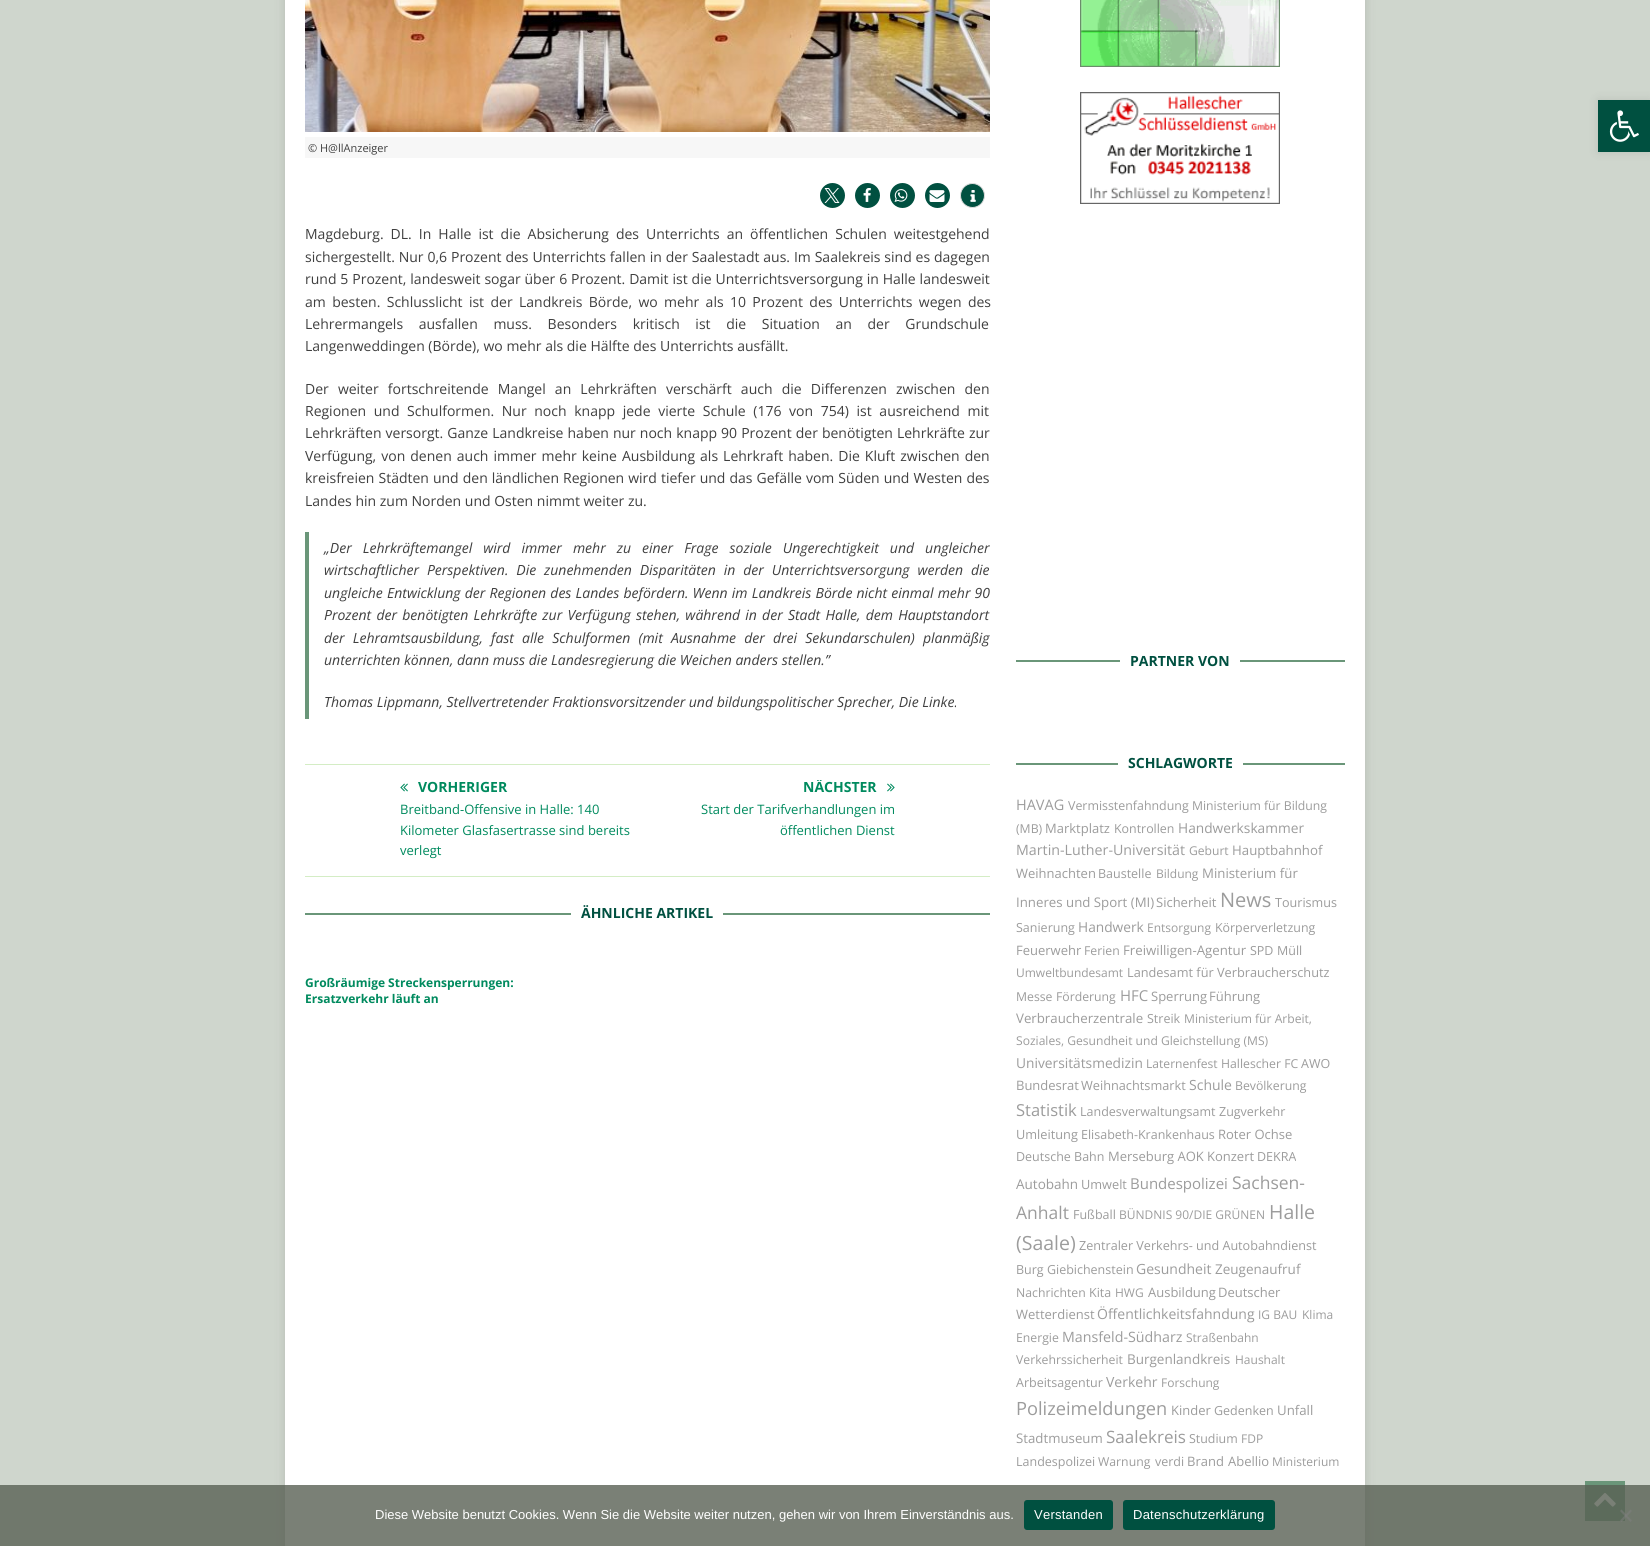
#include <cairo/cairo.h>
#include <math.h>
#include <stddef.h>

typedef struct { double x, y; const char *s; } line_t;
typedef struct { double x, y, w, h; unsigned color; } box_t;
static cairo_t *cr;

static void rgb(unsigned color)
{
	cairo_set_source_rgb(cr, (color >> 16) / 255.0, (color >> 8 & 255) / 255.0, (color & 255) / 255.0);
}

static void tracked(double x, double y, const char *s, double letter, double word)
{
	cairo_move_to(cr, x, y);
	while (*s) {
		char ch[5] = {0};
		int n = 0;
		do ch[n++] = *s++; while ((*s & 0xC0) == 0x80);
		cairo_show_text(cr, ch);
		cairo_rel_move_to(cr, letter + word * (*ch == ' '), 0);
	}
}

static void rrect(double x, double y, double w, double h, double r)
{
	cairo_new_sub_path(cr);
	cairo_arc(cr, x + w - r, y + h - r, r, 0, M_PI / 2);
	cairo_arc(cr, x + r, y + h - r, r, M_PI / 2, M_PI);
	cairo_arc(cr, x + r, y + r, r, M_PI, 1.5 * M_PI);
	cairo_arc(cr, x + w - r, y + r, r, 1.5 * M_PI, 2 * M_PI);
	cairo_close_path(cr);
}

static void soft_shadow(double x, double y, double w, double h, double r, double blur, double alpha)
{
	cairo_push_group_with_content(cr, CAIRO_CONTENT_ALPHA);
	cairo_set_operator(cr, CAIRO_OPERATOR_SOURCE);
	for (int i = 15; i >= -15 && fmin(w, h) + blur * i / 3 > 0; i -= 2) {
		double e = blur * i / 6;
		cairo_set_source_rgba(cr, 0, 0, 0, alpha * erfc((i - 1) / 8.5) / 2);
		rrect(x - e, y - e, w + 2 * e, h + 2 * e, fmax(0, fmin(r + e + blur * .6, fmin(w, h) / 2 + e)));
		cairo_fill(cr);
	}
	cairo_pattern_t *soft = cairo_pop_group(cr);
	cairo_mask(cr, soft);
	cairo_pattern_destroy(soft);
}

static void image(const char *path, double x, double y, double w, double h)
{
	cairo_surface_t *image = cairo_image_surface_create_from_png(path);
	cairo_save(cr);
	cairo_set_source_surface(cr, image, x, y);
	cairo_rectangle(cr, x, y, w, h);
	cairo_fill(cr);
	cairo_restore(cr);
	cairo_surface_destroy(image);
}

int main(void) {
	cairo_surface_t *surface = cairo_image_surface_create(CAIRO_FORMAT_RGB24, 1650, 1546);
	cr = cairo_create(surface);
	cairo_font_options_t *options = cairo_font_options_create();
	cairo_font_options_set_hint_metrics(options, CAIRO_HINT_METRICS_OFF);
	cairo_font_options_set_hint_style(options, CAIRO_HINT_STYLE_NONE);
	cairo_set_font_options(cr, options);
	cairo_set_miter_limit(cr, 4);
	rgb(0xcfd6cd);
	cairo_paint(cr);
	rgb(0x000000);
	soft_shadow(1598, 100, 52, 52, 0, 5, 0.1);
	rgb(0x005040);
	cairo_rectangle(cr, 1598, 100, 52, 52);
	cairo_fill(cr);
	image("img/1.png", 1609, 110, 30, 32);
	rgb(0x323232);
	soft_shadow(285, -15, 1080, 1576, 0, 5, 0.17);
	rgb(0xffffff);
	cairo_rectangle(cr, 285, 0, 1080, 1546);
	cairo_fill(cr);
	image("img/2.png", 305, 0, 685, 132);
	rgb(0xf7f7f7);
	cairo_rectangle(cr, 305, 137, 685, 21);
	cairo_fill(cr);
	rgb(0x005040);
	cairo_arc(cr, 832.5, 195.5, 12.5, 0, 2 * M_PI);
	cairo_fill(cr);
	image("img/3.png", 824, 188, 16, 15);
	cairo_arc(cr, 867.5, 195.5, 12.5, 0, 2 * M_PI);
	cairo_fill(cr);
	image("img/4.png", 863, 188, 8, 14);
	cairo_arc(cr, 902.5, 195.5, 12.5, 0, 2 * M_PI);
	cairo_fill(cr);
	image("img/5.png", 894, 189, 14, 13);
	cairo_arc(cr, 937.5, 195.5, 12.5, 0, 2 * M_PI);
	cairo_fill(cr);
	image("img/6.png", 929, 190, 16, 12);
	cairo_arc(cr, 972.5, 195.5, 12, 0, 2 * M_PI);
	cairo_fill_preserve(cr);
	rgb(0xdddddd);
	cairo_set_line_width(cr, 1);
	cairo_stroke(cr);
	image("img/7.png", 970, 190, 6, 12);
	{
		static const box_t items[] = {
			{305, 532, 4, 187, 0x6a9679},
			{305, 764, 685, 1, 0xd4edc5},
			{305, 876, 685, 1, 0xd4edc5},
		};
		for (size_t i = 0; i < sizeof items / sizeof *items; i++) {
			rgb(items[i].color);
			cairo_rectangle(cr, items[i].x, items[i].y, items[i].w, items[i].h);
			cairo_fill(cr);
		}
	}
	image("img/8.png", 400, 783, 8, 9);
	image("img/9.png", 887, 783, 8, 9);
	rgb(0x6a9679);
	cairo_rectangle(cr, 305, 913, 685, 2);
	cairo_fill(cr);
	rgb(0xffffff);
	cairo_rectangle(cr, 571, 913, 152, 2);
	cairo_fill(cr);
	image("img/10.png", 1080, 0, 200, 67);
	image("img/11.png", 1080, 92, 200, 112);
	{
		static const box_t items[] = {
			{1016, 660, 329, 2, 0x6a9679},
			{1120, 660, 120, 2, 0xffffff},
			{1016, 763, 329, 2, 0x6a9679},
			{1118, 763, 125, 2, 0xffffff},
			{1585, 1481, 40, 40, 0x6a9679},
		};
		for (size_t i = 0; i < sizeof items / sizeof *items; i++) {
			rgb(items[i].color);
			cairo_rectangle(cr, items[i].x, items[i].y, items[i].w, items[i].h);
			cairo_fill(cr);
		}
	}
	image("img/12.png", 1594, 1493, 22, 14);
	cairo_set_source_rgba(cr, 0.349, 0.376, 0.329, 0.8);
	cairo_rectangle(cr, 0, 1485, 1650, 61);
	cairo_fill(cr);
	rgb(0x005040);
	rrect(1024, 1500, 89, 30, 3);
	cairo_fill(cr);
	rrect(1123, 1500, 152, 30, 3);
	cairo_fill(cr);
	cairo_set_source_rgba(cr, 0.502, 0.502, 0.502, 0.5);
	cairo_new_path(cr);
	cairo_move_to(cr, 1630.5, 1509.5);
	cairo_line_to(cr, 1632, 1511);
	cairo_line_to(cr, 1621.5, 1522);
	cairo_line_to(cr, 1620, 1520.5);
	cairo_close_path(cr);
	cairo_fill(cr);
	cairo_new_path(cr);
	cairo_move_to(cr, 1620, 1511);
	cairo_line_to(cr, 1621.5, 1509.5);
	cairo_line_to(cr, 1632, 1520.5);
	cairo_line_to(cr, 1630.5, 1522);
	cairo_close_path(cr);
	cairo_fill(cr);
	cairo_select_font_face(cr, "Open Sans", CAIRO_FONT_SLANT_NORMAL, CAIRO_FONT_WEIGHT_NORMAL);
	cairo_set_font_size(cr, 11);
	rgb(0x3f3f3f);
	cairo_move_to(cr, 308, 152);
	cairo_show_text(cr, "© H@llAnzeiger");
	cairo_set_font_size(cr, 14);
	tracked(305, 239, "Magdeburg. DL. In Halle ist die Absicherung des Unterrichts an öffentlichen Schulen weitestgehend", 0, 3.4);
	tracked(305, 262, "sichergestellt. Nur 0,6 Prozent des Unterrichts fallen in der Saalestadt aus. Im Saalekreis sind es dagegen", 0, 0.25);
	tracked(305, 284, "rund 5 Prozent, landesweit sogar über 6 Prozent. Damit ist die Unterrichtsversorgung in Halle landesweit", 0, 0.25);
	tracked(305, 307, "am besten. Schlusslicht ist der Landkreis Börde, wo mehr als 10 Prozent des Unterrichts wegen des", 0, 2.75);
	tracked(305, 329, "Lehrermangels ausfallen muss. Besonders kritisch ist die Situation an der Grundschule", 0, 12);
	cairo_move_to(cr, 305, 351);
	cairo_show_text(cr, "Langenweddingen (Börde), wo mehr als die Hälfte des Unterrichts ausfällt.");
	tracked(305, 394, "Der weiter fortschreitende Mangel an Lehrkräften verschärft auch die Differenzen zwischen den", 0, 5.5);
	tracked(305, 416, "Regionen und Schulformen. Nur noch knapp jede vierte Schule (176 von 754) ist ausreichend mit", 0, 4);
	tracked(305, 438, "Lehrkräften versorgt. Ganze Landkreise haben nur noch knapp 90 Prozent der benötigten Lehrkräfte zur", 0, 0.4);
	tracked(305, 461, "Verfügung, von denen auch immer mehr keine Ausbildung als Lehrkraft haben. Die Kluft zwischen den", 0, 1.4);
	tracked(305, 483, "kreisfreien Städten und den ländlichen Regionen wird tiefer und das Gefälle vom Süden und Westen des", 0, 0.4);
	cairo_move_to(cr, 305, 506);
	cairo_show_text(cr, "Landes hin zum Norden und Osten nimmt weiter zu.");
	cairo_select_font_face(cr, "Open Sans", CAIRO_FONT_SLANT_ITALIC, CAIRO_FONT_WEIGHT_NORMAL);
	tracked(324, 553, "„Der Lehrkräftemangel wird immer mehr zu einer Frage soziale Ungerechtigkeit und ungleicher", 0, 7.4);
	tracked(324, 575, "wirtschaftlicher Perspektiven. Die zunehmenden Disparitäten in der Unterrichtsversorgung werden die", 0, 4.25);
	tracked(324, 598, "ungleiche Entwicklung der Regionen des Landes befördern. Wenn im Landkreis Börde nicht einmal mehr 90", 0, 0.5);
	tracked(324, 620, "Prozent der benötigten Lehrkräfte zur Verfügung stehen, während in der Stadt Halle, dem Hauptstandort", 0, 1.6);
	tracked(324, 643, "der Lehramtsausbildung, fast alle Schulformen (mit Ausnahme der drei Sekundarschulen) planmäßig", 0, 4.5);
	cairo_move_to(cr, 324, 665);
	cairo_show_text(cr, "unterrichten können, dann muss die Landesregierung die Weichen anders stellen.”");
	cairo_move_to(cr, 324, 707);
	cairo_show_text(cr, "Thomas Lippmann, Stellvertretender Fraktionsvorsitzender und bildungspolitischer Sprecher, Die Linke.");
	cairo_select_font_face(cr, "Open Sans", CAIRO_FONT_SLANT_NORMAL, CAIRO_FONT_WEIGHT_BOLD);
	rgb(0x008a5e);
	cairo_move_to(cr, 418, 792);
	cairo_show_text(cr, "VORHERIGER");
	cairo_select_font_face(cr, "Open Sans", CAIRO_FONT_SLANT_NORMAL, CAIRO_FONT_WEIGHT_NORMAL);
	cairo_set_font_size(cr, 13);
	{
		static const line_t items[] = {
			{400, 814, "Breitband-Offensive in Halle: 140"},
			{400, 835, "Kilometer Glasfasertrasse sind bereits"},
			{400, 855, "verlegt"},
		};
		for (size_t i = 0; i < sizeof items / sizeof *items; i++) {
			cairo_move_to(cr, items[i].x, items[i].y);
			cairo_show_text(cr, items[i].s);
		}
	}
	cairo_save(cr);
	cairo_rectangle(cr, 656, 780, 239, 14);
	cairo_clip(cr);
	cairo_select_font_face(cr, "Open Sans", CAIRO_FONT_SLANT_NORMAL, CAIRO_FONT_WEIGHT_BOLD);
	cairo_set_font_size(cr, 14);
	cairo_move_to(cr, 803, 792);
	cairo_show_text(cr, "NÄCHSTER");
	cairo_restore(cr);
	cairo_move_to(cr, 701, 814);
	cairo_show_text(cr, "Start der Tarifverhandlungen im");
	cairo_move_to(cr, 780, 835);
	cairo_show_text(cr, "öffentlichen Dienst");
	cairo_select_font_face(cr, "Open Sans", CAIRO_FONT_SLANT_NORMAL, CAIRO_FONT_WEIGHT_BOLD);
	cairo_set_font_size(cr, 14);
	rgb(0x005040);
	cairo_move_to(cr, 581, 918);
	cairo_show_text(cr, "ÄHNLICHE ARTIKEL");
	cairo_set_font_size(cr, 12);
	rgb(0x008a5e);
	cairo_move_to(cr, 305, 987);
	cairo_show_text(cr, "Großräumige Streckensperrungen:");
	cairo_move_to(cr, 305, 1003);
	cairo_show_text(cr, "Ersatzverkehr läuft an");
	cairo_set_font_size(cr, 14);
	rgb(0x005040);
	cairo_move_to(cr, 1130, 666);
	cairo_show_text(cr, "PARTNER VON");
	cairo_move_to(cr, 1128, 768);
	cairo_show_text(cr, "SCHLAGWORTE");
	cairo_select_font_face(cr, "Open Sans", CAIRO_FONT_SLANT_NORMAL, CAIRO_FONT_WEIGHT_NORMAL);
	cairo_set_font_size(cr, 14.5);
	rgb(0x9c9c9c);
	cairo_move_to(cr, 1016, 810);
	cairo_show_text(cr, "HAVAG");
	cairo_set_font_size(cr, 12.4);
	cairo_move_to(cr, 1068, 810);
	cairo_show_text(cr, "Vermisstenfahndung");
	cairo_set_font_size(cr, 12.25);
	cairo_move_to(cr, 1192, 810);
	cairo_show_text(cr, "Ministerium für Bildung");
	cairo_move_to(cr, 1016, 833);
	cairo_show_text(cr, "(MB)");
	cairo_set_font_size(cr, 13);
	cairo_move_to(cr, 1045, 833);
	cairo_show_text(cr, "Marktplatz");
	cairo_set_font_size(cr, 12.4);
	cairo_move_to(cr, 1114, 833);
	cairo_show_text(cr, "Kontrollen");
	cairo_set_font_size(cr, 13.75);
	cairo_move_to(cr, 1178, 833);
	cairo_show_text(cr, "Handwerkskammer");
	cairo_set_font_size(cr, 14.25);
	cairo_move_to(cr, 1016, 855);
	cairo_show_text(cr, "Martin-Luther-Universität");
	cairo_set_font_size(cr, 12.1);
	cairo_move_to(cr, 1189, 855);
	cairo_show_text(cr, "Geburt");
	cairo_set_font_size(cr, 13.25);
	cairo_move_to(cr, 1232, 855);
	cairo_show_text(cr, "Hauptbahnhof");
	cairo_set_font_size(cr, 13);
	cairo_move_to(cr, 1016, 878);
	cairo_show_text(cr, "Weihnachten");
	cairo_set_font_size(cr, 12.5);
	cairo_move_to(cr, 1098, 878);
	cairo_show_text(cr, "Baustelle");
	cairo_set_font_size(cr, 12);
	cairo_move_to(cr, 1156, 878);
	cairo_show_text(cr, "Bildung");
	cairo_set_font_size(cr, 13.25);
	cairo_move_to(cr, 1202, 878);
	cairo_show_text(cr, "Ministerium für");
	cairo_move_to(cr, 1016, 907);
	cairo_show_text(cr, "Inneres und Sport (MI)");
	cairo_set_font_size(cr, 13);
	cairo_move_to(cr, 1156, 907);
	cairo_show_text(cr, "Sicherheit");
	cairo_set_font_size(cr, 20);
	cairo_move_to(cr, 1220, 907);
	cairo_show_text(cr, "News");
	cairo_set_font_size(cr, 12.6);
	cairo_move_to(cr, 1275, 907);
	cairo_show_text(cr, "Tourismus");
	cairo_set_font_size(cr, 12.5);
	cairo_move_to(cr, 1016, 932);
	cairo_show_text(cr, "Sanierung");
	cairo_set_font_size(cr, 13.75);
	cairo_move_to(cr, 1078, 932);
	cairo_show_text(cr, "Handwerk");
	cairo_set_font_size(cr, 12);
	cairo_move_to(cr, 1147, 932);
	cairo_show_text(cr, "Entsorgung");
	cairo_set_font_size(cr, 12.4);
	cairo_move_to(cr, 1215, 932);
	cairo_show_text(cr, "Körperverletzung");
	cairo_set_font_size(cr, 13);
	cairo_move_to(cr, 1016, 955);
	cairo_show_text(cr, "Feuerwehr");
	cairo_set_font_size(cr, 12.25);
	cairo_move_to(cr, 1084, 955);
	cairo_show_text(cr, "Ferien");
	cairo_set_font_size(cr, 13.25);
	cairo_move_to(cr, 1123, 955);
	cairo_show_text(cr, "Freiwilligen-Agentur");
	cairo_set_font_size(cr, 12.5);
	cairo_move_to(cr, 1250, 955);
	cairo_show_text(cr, "SPD");
	cairo_move_to(cr, 1277, 955);
	cairo_show_text(cr, "Müll");
	cairo_set_font_size(cr, 12);
	cairo_move_to(cr, 1016, 977);
	cairo_show_text(cr, "Umweltbundesamt");
	cairo_set_font_size(cr, 12.75);
	cairo_move_to(cr, 1127, 977);
	cairo_show_text(cr, "Landesamt für Verbraucherschutz");
	cairo_set_font_size(cr, 12.25);
	cairo_move_to(cr, 1016, 1001);
	cairo_show_text(cr, "Messe");
	cairo_move_to(cr, 1056, 1001);
	cairo_show_text(cr, "Förderung");
	cairo_set_font_size(cr, 15);
	cairo_move_to(cr, 1120, 1001);
	cairo_show_text(cr, "HFC");
	cairo_set_font_size(cr, 13);
	cairo_move_to(cr, 1151, 1001);
	cairo_show_text(cr, "Sperrung");
	cairo_move_to(cr, 1209, 1001);
	cairo_show_text(cr, "Führung");
	cairo_set_font_size(cr, 13.25);
	cairo_move_to(cr, 1016, 1023);
	cairo_show_text(cr, "Verbraucherzentrale");
	cairo_set_font_size(cr, 12.5);
	cairo_move_to(cr, 1147, 1023);
	cairo_show_text(cr, "Streik");
	cairo_set_font_size(cr, 12.1);
	cairo_move_to(cr, 1184, 1023);
	cairo_show_text(cr, "Ministerium für Arbeit,");
	cairo_move_to(cr, 1016, 1045);
	cairo_show_text(cr, "Soziales, Gesundheit und Gleichstellung (MS)");
	cairo_set_font_size(cr, 13.75);
	cairo_move_to(cr, 1016, 1068);
	cairo_show_text(cr, "Universitätsmedizin");
	cairo_set_font_size(cr, 12.1);
	cairo_move_to(cr, 1146, 1068);
	cairo_show_text(cr, "Laternenfest");
	cairo_set_font_size(cr, 12.25);
	cairo_move_to(cr, 1221, 1068);
	cairo_show_text(cr, "Hallescher FC");
	cairo_set_font_size(cr, 12.5);
	cairo_move_to(cr, 1301, 1068);
	cairo_show_text(cr, "AWO");
	cairo_set_font_size(cr, 13);
	cairo_move_to(cr, 1016, 1090);
	cairo_show_text(cr, "Bundesrat");
	cairo_set_font_size(cr, 12.75);
	cairo_move_to(cr, 1081, 1090);
	cairo_show_text(cr, "Weihnachtsmarkt");
	cairo_set_font_size(cr, 14);
	cairo_move_to(cr, 1189, 1090);
	cairo_show_text(cr, "Schule");
	cairo_set_font_size(cr, 12.25);
	cairo_move_to(cr, 1235, 1090);
	cairo_show_text(cr, "Bevölkerung");
	cairo_set_font_size(cr, 16.5);
	cairo_move_to(cr, 1016, 1116);
	cairo_show_text(cr, "Statistik");
	cairo_set_font_size(cr, 12.5);
	cairo_move_to(cr, 1080, 1116);
	cairo_show_text(cr, "Landesverwaltungsamt");
	cairo_move_to(cr, 1219, 1116);
	cairo_show_text(cr, "Zugverkehr");
	cairo_set_font_size(cr, 12.75);
	cairo_move_to(cr, 1016, 1139);
	cairo_show_text(cr, "Umleitung");
	cairo_set_font_size(cr, 12.5);
	cairo_move_to(cr, 1081, 1139);
	cairo_show_text(cr, "Elisabeth-Krankenhaus");
	cairo_set_font_size(cr, 13);
	cairo_move_to(cr, 1218, 1139);
	cairo_show_text(cr, "Roter Ochse");
	cairo_set_font_size(cr, 12.5);
	cairo_move_to(cr, 1016, 1161);
	cairo_show_text(cr, "Deutsche Bahn");
	cairo_set_font_size(cr, 13);
	cairo_move_to(cr, 1108, 1161);
	cairo_show_text(cr, "Merseburg AOK");
	cairo_move_to(cr, 1207, 1161);
	cairo_show_text(cr, "Konzert");
	cairo_set_font_size(cr, 12.5);
	cairo_move_to(cr, 1257, 1161);
	cairo_show_text(cr, "DEKRA");
	cairo_set_font_size(cr, 13.5);
	cairo_move_to(cr, 1016, 1189);
	cairo_show_text(cr, "Autobahn");
	cairo_set_font_size(cr, 12.75);
	cairo_move_to(cr, 1081, 1189);
	cairo_show_text(cr, "Umwelt");
	cairo_set_font_size(cr, 15);
	cairo_move_to(cr, 1130, 1189);
	cairo_show_text(cr, "Bundespolizei");
	cairo_set_font_size(cr, 17.5);
	cairo_move_to(cr, 1232, 1189);
	cairo_show_text(cr, "Sachsen-");
	cairo_move_to(cr, 1016, 1219);
	cairo_show_text(cr, "Anhalt");
	cairo_set_font_size(cr, 12.5);
	cairo_move_to(cr, 1073, 1219);
	cairo_show_text(cr, "Fußball");
	cairo_set_font_size(cr, 12);
	cairo_move_to(cr, 1119, 1219);
	cairo_show_text(cr, "BÜNDNIS 90/DIE GRÜNEN");
	cairo_set_font_size(cr, 19.5);
	cairo_move_to(cr, 1269, 1219);
	cairo_show_text(cr, "Halle");
	cairo_move_to(cr, 1016, 1250);
	cairo_show_text(cr, "(Saale)");
	cairo_set_font_size(cr, 12.6);
	cairo_move_to(cr, 1079, 1250);
	cairo_show_text(cr, "Zentraler Verkehrs- und Autobahndienst");
	cairo_set_font_size(cr, 12.5);
	cairo_move_to(cr, 1016, 1274);
	cairo_show_text(cr, "Burg Giebichenstein");
	cairo_set_font_size(cr, 14);
	cairo_move_to(cr, 1136, 1274);
	cairo_show_text(cr, "Gesundheit");
	cairo_set_font_size(cr, 13.5);
	cairo_move_to(cr, 1215, 1274);
	cairo_show_text(cr, "Zeugenaufruf");
	cairo_set_font_size(cr, 12.25);
	cairo_move_to(cr, 1016, 1297);
	cairo_show_text(cr, "Nachrichten");
	cairo_set_font_size(cr, 12.5);
	cairo_move_to(cr, 1089, 1297);
	cairo_show_text(cr, "Kita");
	cairo_set_font_size(cr, 12);
	cairo_move_to(cr, 1115, 1297);
	cairo_show_text(cr, "HWG");
	cairo_set_font_size(cr, 13);
	{
		static const line_t items[] = {
			{1148, 1297, "Ausbildung"},
			{1218, 1297, "Deutscher"},
			{1016, 1319, "Wetterdienst"},
		};
		for (size_t i = 0; i < sizeof items / sizeof *items; i++) {
			cairo_move_to(cr, items[i].x, items[i].y);
			cairo_show_text(cr, items[i].s);
		}
	}
	cairo_set_font_size(cr, 14);
	cairo_move_to(cr, 1097, 1319);
	cairo_show_text(cr, "Öffentlichkeitsfahndung");
	cairo_set_font_size(cr, 12);
	cairo_move_to(cr, 1258, 1319);
	cairo_show_text(cr, "IG BAU");
	cairo_move_to(cr, 1302, 1319);
	cairo_show_text(cr, "Klima");
	cairo_set_font_size(cr, 12.25);
	cairo_move_to(cr, 1016, 1342);
	cairo_show_text(cr, "Energie");
	cairo_set_font_size(cr, 14.25);
	cairo_move_to(cr, 1062, 1342);
	cairo_show_text(cr, "Mansfeld-Südharz");
	cairo_set_font_size(cr, 12);
	cairo_move_to(cr, 1186, 1342);
	cairo_show_text(cr, "Straßenbahn");
	cairo_set_font_size(cr, 12.25);
	cairo_move_to(cr, 1016, 1364);
	cairo_show_text(cr, "Verkehrssicherheit");
	cairo_set_font_size(cr, 13.5);
	cairo_move_to(cr, 1127, 1364);
	cairo_show_text(cr, "Burgenlandkreis");
	cairo_set_font_size(cr, 12);
	cairo_move_to(cr, 1235, 1364);
	cairo_show_text(cr, "Haushalt");
	cairo_set_font_size(cr, 12.5);
	cairo_move_to(cr, 1016, 1387);
	cairo_show_text(cr, "Arbeitsagentur");
	cairo_set_font_size(cr, 14);
	cairo_move_to(cr, 1106, 1387);
	cairo_show_text(cr, "Verkehr");
	cairo_set_font_size(cr, 12);
	cairo_move_to(cr, 1161, 1387);
	cairo_show_text(cr, "Forschung");
	cairo_set_font_size(cr, 18.25);
	cairo_move_to(cr, 1016, 1415);
	cairo_show_text(cr, "Polizeimeldungen");
	cairo_set_font_size(cr, 13);
	cairo_move_to(cr, 1171, 1415);
	cairo_show_text(cr, "Kinder");
	cairo_set_font_size(cr, 12.5);
	cairo_move_to(cr, 1214, 1415);
	cairo_show_text(cr, "Gedenken");
	cairo_set_font_size(cr, 13.25);
	cairo_move_to(cr, 1277, 1415);
	cairo_show_text(cr, "Unfall");
	cairo_move_to(cr, 1016, 1443);
	cairo_show_text(cr, "Stadtmuseum");
	cairo_set_font_size(cr, 17);
	cairo_move_to(cr, 1106, 1443);
	cairo_show_text(cr, "Saalekreis");
	cairo_set_font_size(cr, 12.4);
	cairo_move_to(cr, 1189, 1443);
	cairo_show_text(cr, "Studium");
	cairo_set_font_size(cr, 12);
	cairo_move_to(cr, 1241, 1443);
	cairo_show_text(cr, "FDP");
	cairo_set_font_size(cr, 12.5);
	cairo_move_to(cr, 1016, 1466);
	cairo_show_text(cr, "Landespolizei");
	cairo_set_font_size(cr, 12.25);
	cairo_move_to(cr, 1098, 1466);
	cairo_show_text(cr, "Warnung");
	cairo_set_font_size(cr, 12.5);
	cairo_move_to(cr, 1155, 1466);
	cairo_show_text(cr, "verdi");
	cairo_set_font_size(cr, 13);
	cairo_move_to(cr, 1187, 1466);
	cairo_show_text(cr, "Brand");
	cairo_move_to(cr, 1228, 1466);
	cairo_show_text(cr, "Abellio");
	cairo_set_font_size(cr, 12);
	cairo_move_to(cr, 1272, 1466);
	cairo_show_text(cr, "Ministerium");
	cairo_select_font_face(cr, "Liberation Sans", CAIRO_FONT_SLANT_NORMAL, CAIRO_FONT_WEIGHT_NORMAL);
	cairo_set_font_size(cr, 13);
	rgb(0xffffff);
	cairo_move_to(cr, 375, 1519);
	cairo_show_text(cr, "Diese Website benutzt Cookies. Wenn Sie die Website weiter nutzen, gehen wir von Ihrem Einverständnis aus.");
	tracked(1034, 1519, "Verstanden", 0.25, 0);
	tracked(1133, 1519, "Datenschutzerklärung", 0.25, 0);
	cairo_surface_write_to_png(surface, "page.png");
	cairo_font_options_destroy(options);
	cairo_destroy(cr);
	cairo_surface_destroy(surface);
	return 0;
}
